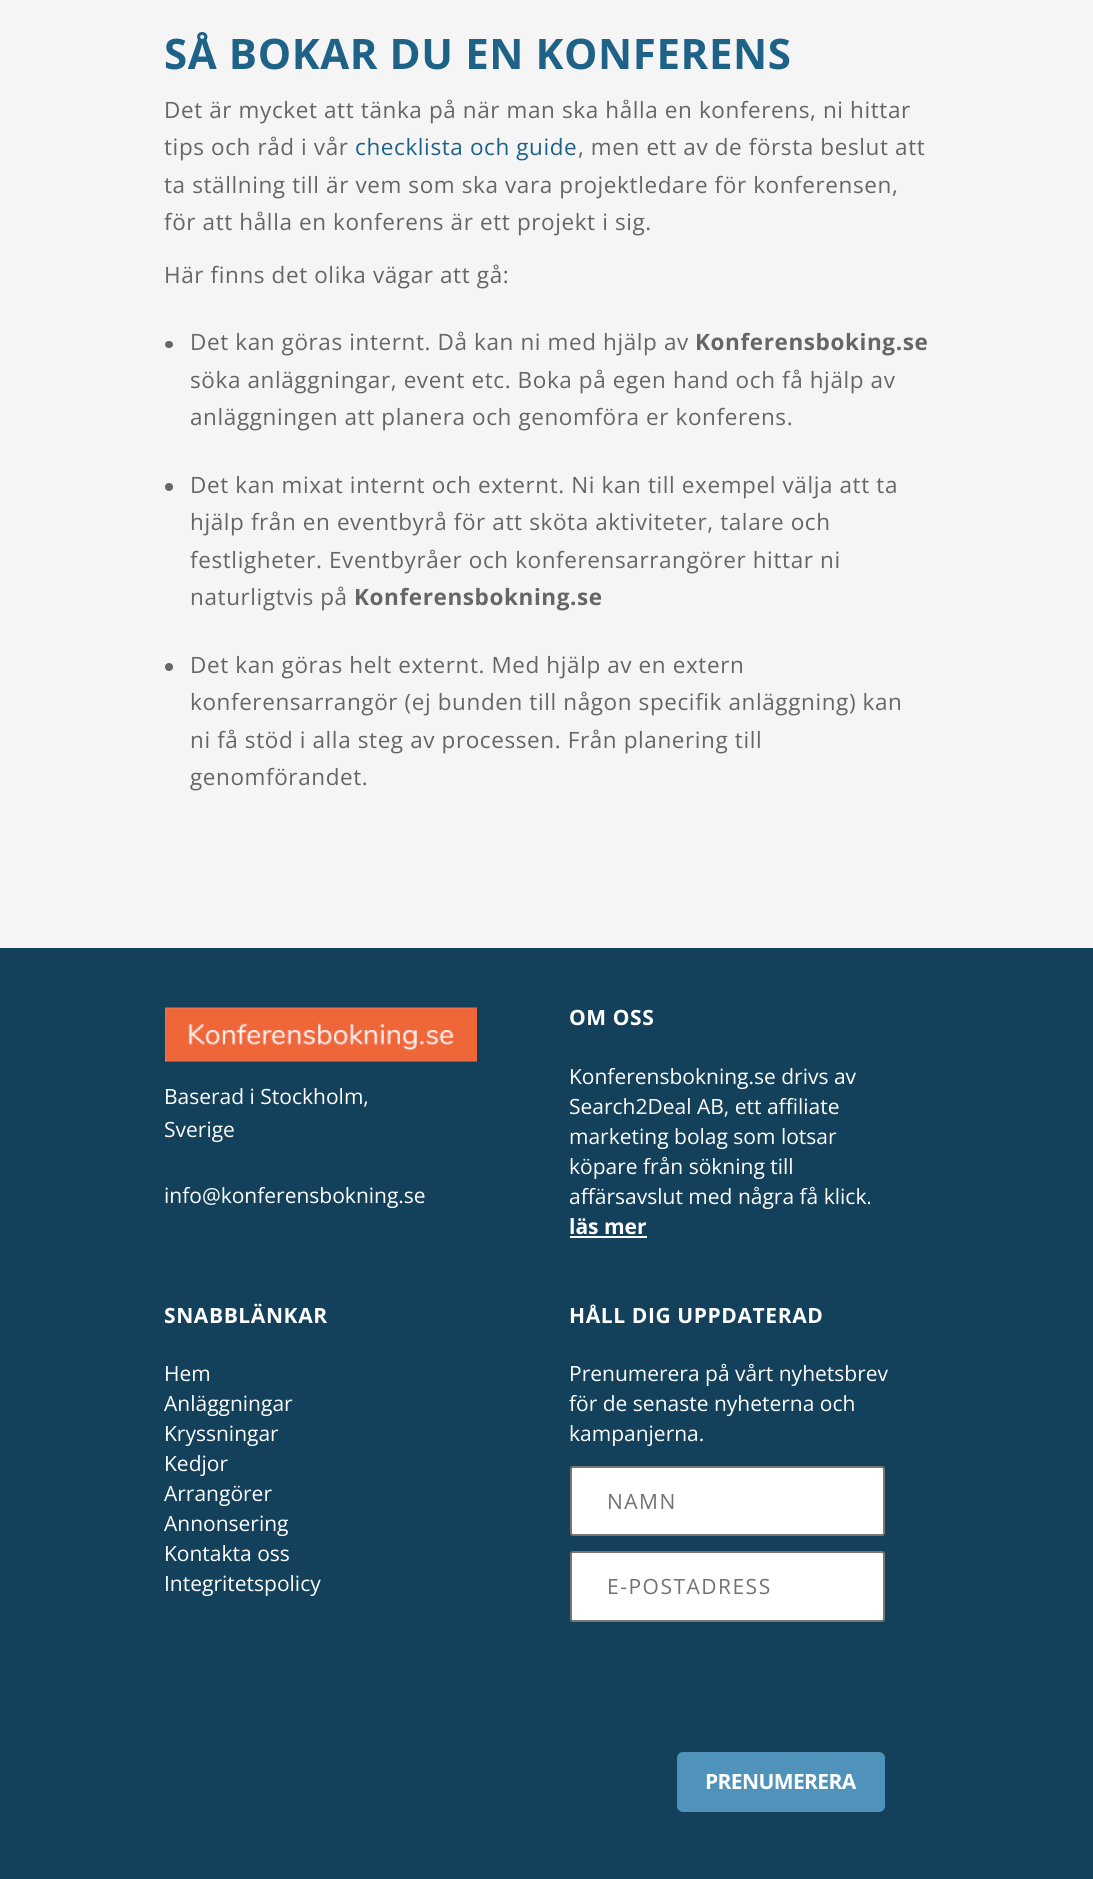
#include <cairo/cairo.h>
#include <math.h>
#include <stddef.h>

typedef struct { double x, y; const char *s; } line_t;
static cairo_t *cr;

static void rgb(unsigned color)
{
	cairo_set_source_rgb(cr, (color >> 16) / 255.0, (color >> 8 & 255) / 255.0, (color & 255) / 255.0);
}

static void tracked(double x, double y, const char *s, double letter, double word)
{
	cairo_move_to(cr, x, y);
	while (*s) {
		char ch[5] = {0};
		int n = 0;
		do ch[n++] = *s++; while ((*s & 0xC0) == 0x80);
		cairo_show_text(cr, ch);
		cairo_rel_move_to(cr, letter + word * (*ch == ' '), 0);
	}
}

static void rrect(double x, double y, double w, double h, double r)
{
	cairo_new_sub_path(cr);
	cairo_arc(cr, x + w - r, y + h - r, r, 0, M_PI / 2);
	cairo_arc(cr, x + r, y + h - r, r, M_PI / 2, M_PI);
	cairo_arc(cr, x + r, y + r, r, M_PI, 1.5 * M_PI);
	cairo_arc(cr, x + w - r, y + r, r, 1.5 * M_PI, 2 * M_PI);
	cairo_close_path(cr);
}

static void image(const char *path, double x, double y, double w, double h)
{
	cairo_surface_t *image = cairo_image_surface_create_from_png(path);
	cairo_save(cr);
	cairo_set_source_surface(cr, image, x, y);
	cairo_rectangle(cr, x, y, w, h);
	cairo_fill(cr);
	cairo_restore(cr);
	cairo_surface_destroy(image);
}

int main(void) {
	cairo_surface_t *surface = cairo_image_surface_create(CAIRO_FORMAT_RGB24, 1093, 1879);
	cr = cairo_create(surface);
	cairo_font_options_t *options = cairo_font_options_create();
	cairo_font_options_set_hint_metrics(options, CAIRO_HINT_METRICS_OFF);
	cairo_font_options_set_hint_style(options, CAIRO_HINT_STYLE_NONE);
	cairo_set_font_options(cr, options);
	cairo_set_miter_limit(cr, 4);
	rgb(0xf5f5f5);
	cairo_paint(cr);
	rgb(0x666666);
	rrect(165, 341, 8, 7, 3.5);
	cairo_fill(cr);
	cairo_arc(cr, 169, 487, 4, 0, 2 * M_PI);
	cairo_fill(cr);
	cairo_arc(cr, 169, 667, 4, 0, 2 * M_PI);
	cairo_fill(cr);
	rgb(0x13405a);
	cairo_rectangle(cr, 0, 948, 1093, 931);
	cairo_fill(cr);
	image("img/1.png", 165, 1007, 312, 55);
	rgb(0xffffff);
	cairo_rectangle(cr, 570, 1236, 77, 2);
	cairo_fill(cr);
	rrect(571, 1467, 313, 68, 2);
	cairo_fill_preserve(cr);
	rgb(0x767676);
	cairo_stroke(cr);
	rgb(0xffffff);
	rrect(571, 1552, 313, 69, 2);
	cairo_fill_preserve(cr);
	rgb(0x767676);
	cairo_stroke(cr);
	rgb(0x5093ba);
	rrect(677, 1752, 208, 60, 6);
	cairo_fill(cr);
	cairo_select_font_face(cr, "Open Sans", CAIRO_FONT_SLANT_NORMAL, CAIRO_FONT_WEIGHT_BOLD);
	cairo_set_font_size(cr, 42);
	rgb(0x1f6288);
	tracked(164, 69, "SÅ BOKAR DU EN KONFERENS", 0.6, 0);
	cairo_select_font_face(cr, "Open Sans", CAIRO_FONT_SLANT_NORMAL, CAIRO_FONT_WEIGHT_NORMAL);
	cairo_set_font_size(cr, 22.5);
	rgb(0x666666);
	tracked(164, 118, "Det är mycket att tänka på när man ska hålla en konferens, ni hittar", 0.6, 0);
	tracked(164, 155, "tips och råd i vår", 0.6, 0);
	rgb(0x1f6288);
	tracked(355, 155, "checklista och guide", 0.6, 0);
	rgb(0x666666);
	{
		static const line_t items[] = {
			{578, 155, ", men ett av de första beslut att"},
			{164, 193, "ta ställning till är vem som ska vara projektledare för konferensen,"},
			{164, 230, "för att hålla en konferens är ett projekt i sig."},
			{164, 283, "Här finns det olika vägar att gå:"},
			{190, 350, "Det kan göras internt. Då kan ni med hjälp av"},
		};
		for (size_t i = 0; i < sizeof items / sizeof *items; i++) {
			tracked(items[i].x, items[i].y, items[i].s, 0.6, 0);
		}
	}
	cairo_select_font_face(cr, "Open Sans", CAIRO_FONT_SLANT_NORMAL, CAIRO_FONT_WEIGHT_BOLD);
	tracked(695, 350, "Konferensboking.se", 0.6, 0);
	cairo_select_font_face(cr, "Open Sans", CAIRO_FONT_SLANT_NORMAL, CAIRO_FONT_WEIGHT_NORMAL);
	{
		static const line_t items[] = {
			{190, 388, "söka anläggningar, event etc. Boka på egen hand och få hjälp av"},
			{190, 425, "anläggningen att planera och genomföra er konferens."},
			{190, 493, "Det kan mixat internt och externt. Ni kan till exempel välja att ta"},
			{190, 530, "hjälp från en eventbyrå för att sköta aktiviteter, talare och"},
			{190, 568, "festligheter. Eventbyråer och konferensarrangörer hittar ni"},
			{190, 605, "naturligtvis på"},
		};
		for (size_t i = 0; i < sizeof items / sizeof *items; i++) {
			tracked(items[i].x, items[i].y, items[i].s, 0.6, 0);
		}
	}
	cairo_select_font_face(cr, "Open Sans", CAIRO_FONT_SLANT_NORMAL, CAIRO_FONT_WEIGHT_BOLD);
	tracked(354, 605, "Konferensbokning.se", 0.6, 0);
	cairo_select_font_face(cr, "Open Sans", CAIRO_FONT_SLANT_NORMAL, CAIRO_FONT_WEIGHT_NORMAL);
	{
		static const line_t items[] = {
			{190, 673, "Det kan göras helt externt. Med hjälp av en extern"},
			{190, 710, "konferensarrangör (ej bunden till någon specifik anläggning) kan"},
			{190, 748, "ni få stöd i alla steg av processen. Från planering till"},
			{190, 785, "genomförandet."},
		};
		for (size_t i = 0; i < sizeof items / sizeof *items; i++) {
			tracked(items[i].x, items[i].y, items[i].s, 0.6, 0);
		}
	}
	cairo_set_font_size(cr, 21);
	rgb(0xffffff);
	{
		static const line_t items[] = {
			{164, 1104, "Baserad i Stockholm,"},
			{164, 1137, "Sverige"},
			{164, 1203, "info@konferensbokning.se"},
		};
		for (size_t i = 0; i < sizeof items / sizeof *items; i++) {
			cairo_move_to(cr, items[i].x, items[i].y);
			cairo_show_text(cr, items[i].s);
		}
	}
	cairo_select_font_face(cr, "Open Sans", CAIRO_FONT_SLANT_NORMAL, CAIRO_FONT_WEIGHT_BOLD);
	tracked(569, 1025, "OM OSS", 0.6, 0);
	cairo_select_font_face(cr, "Open Sans", CAIRO_FONT_SLANT_NORMAL, CAIRO_FONT_WEIGHT_NORMAL);
	{
		static const line_t items[] = {
			{569, 1084, "Konferensbokning.se drivs av"},
			{569, 1114, "Search2Deal AB, ett affiliate"},
			{569, 1144, "marketing bolag som lotsar"},
			{569, 1174, "köpare från sökning till"},
			{569, 1204, "affärsavslut med några få klick."},
		};
		for (size_t i = 0; i < sizeof items / sizeof *items; i++) {
			cairo_move_to(cr, items[i].x, items[i].y);
			cairo_show_text(cr, items[i].s);
		}
	}
	cairo_select_font_face(cr, "Open Sans", CAIRO_FONT_SLANT_NORMAL, CAIRO_FONT_WEIGHT_BOLD);
	cairo_move_to(cr, 569, 1234);
	cairo_show_text(cr, "läs mer");
	tracked(164, 1323, "SNABBLÄNKAR", 0.6, 0);
	cairo_select_font_face(cr, "Open Sans", CAIRO_FONT_SLANT_NORMAL, CAIRO_FONT_WEIGHT_NORMAL);
	{
		static const line_t items[] = {
			{164, 1381, "Hem"},
			{164, 1411, "Anläggningar"},
			{164, 1441, "Kryssningar"},
			{164, 1471, "Kedjor"},
			{164, 1501, "Arrangörer"},
			{164, 1531, "Annonsering"},
			{164, 1561, "Kontakta oss"},
			{164, 1591, "Integritetspolicy"},
		};
		for (size_t i = 0; i < sizeof items / sizeof *items; i++) {
			cairo_move_to(cr, items[i].x, items[i].y);
			cairo_show_text(cr, items[i].s);
		}
	}
	cairo_select_font_face(cr, "Open Sans", CAIRO_FONT_SLANT_NORMAL, CAIRO_FONT_WEIGHT_BOLD);
	tracked(569, 1323, "HÅLL DIG UPPDATERAD", 0.6, 0);
	cairo_select_font_face(cr, "Open Sans", CAIRO_FONT_SLANT_NORMAL, CAIRO_FONT_WEIGHT_NORMAL);
	{
		static const line_t items[] = {
			{569, 1381, "Prenumerera på vårt nyhetsbrev"},
			{569, 1411, "för de senaste nyheterna och"},
			{569, 1441, "kampanjerna."},
		};
		for (size_t i = 0; i < sizeof items / sizeof *items; i++) {
			cairo_move_to(cr, items[i].x, items[i].y);
			cairo_show_text(cr, items[i].s);
		}
	}
	rgb(0x727272);
	tracked(607, 1509, "NAMN", 1.5, 0);
	tracked(607, 1594, "E-POSTADRESS", 1.5, 0);
	cairo_select_font_face(cr, "Open Sans", CAIRO_FONT_SLANT_NORMAL, CAIRO_FONT_WEIGHT_BOLD);
	rgb(0xffffff);
	tracked(705, 1789, "PRENUMERERA", -0.6, 0);
	cairo_surface_write_to_png(surface, "page.png");
	cairo_font_options_destroy(options);
	cairo_destroy(cr);
	cairo_surface_destroy(surface);
	return 0;
}
